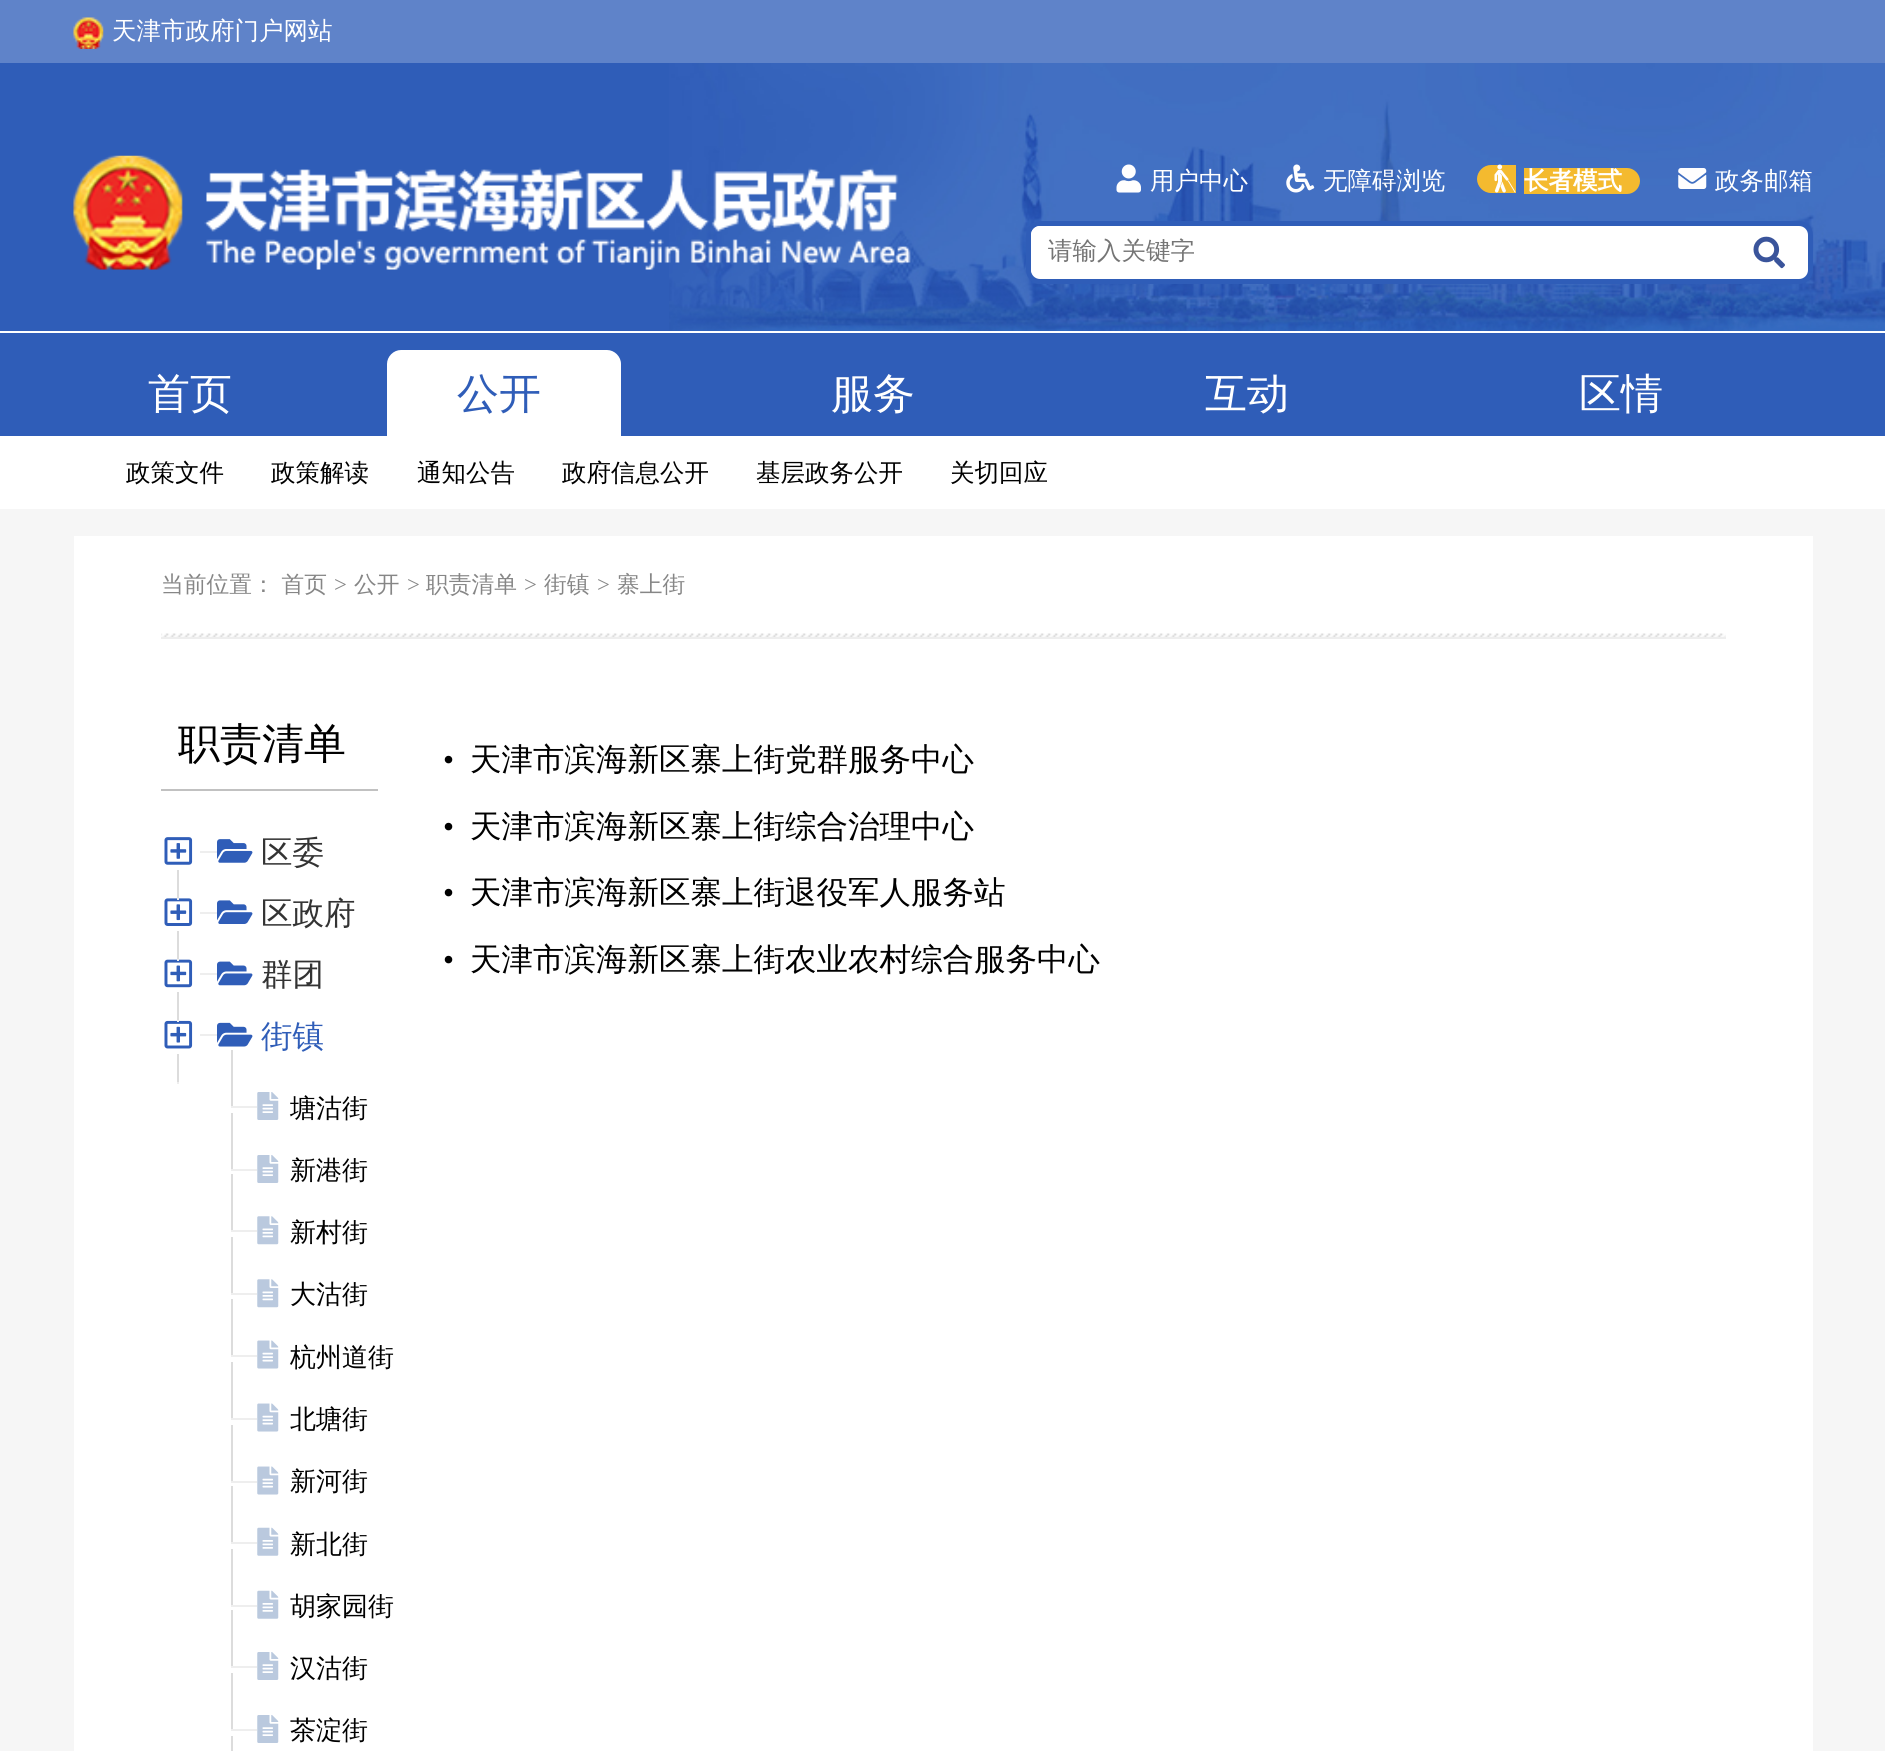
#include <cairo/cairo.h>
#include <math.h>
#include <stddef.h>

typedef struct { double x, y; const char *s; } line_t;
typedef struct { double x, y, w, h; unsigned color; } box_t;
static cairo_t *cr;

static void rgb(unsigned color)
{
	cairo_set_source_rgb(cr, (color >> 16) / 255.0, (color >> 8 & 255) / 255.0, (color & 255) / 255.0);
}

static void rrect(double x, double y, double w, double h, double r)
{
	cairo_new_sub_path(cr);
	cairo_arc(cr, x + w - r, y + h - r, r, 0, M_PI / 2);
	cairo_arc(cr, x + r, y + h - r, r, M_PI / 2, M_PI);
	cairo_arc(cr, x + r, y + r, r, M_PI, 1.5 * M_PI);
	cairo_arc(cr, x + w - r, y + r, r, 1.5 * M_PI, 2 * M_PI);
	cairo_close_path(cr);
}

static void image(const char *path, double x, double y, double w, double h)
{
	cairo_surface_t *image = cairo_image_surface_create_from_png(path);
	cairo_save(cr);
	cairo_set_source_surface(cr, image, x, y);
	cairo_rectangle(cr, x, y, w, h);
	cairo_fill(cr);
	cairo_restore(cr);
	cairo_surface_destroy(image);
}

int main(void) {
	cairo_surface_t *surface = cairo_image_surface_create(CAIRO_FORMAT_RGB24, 1885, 1751);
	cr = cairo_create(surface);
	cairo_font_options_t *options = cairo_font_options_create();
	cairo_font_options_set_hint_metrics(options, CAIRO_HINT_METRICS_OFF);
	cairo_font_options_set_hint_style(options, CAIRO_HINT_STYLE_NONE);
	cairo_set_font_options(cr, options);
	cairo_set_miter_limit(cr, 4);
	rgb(0xf6f6f6);
	cairo_paint(cr);
	rgb(0x5f83c9);
	cairo_rectangle(cr, 0, 0, 1885, 63);
	cairo_fill(cr);
	image("img/1.png", 73, 17, 31, 32);
	rgb(0x2f5db8);
	cairo_rectangle(cr, 0, 63, 669, 268);
	cairo_fill(cr);
	image("img/2.png", 669, 63, 1216, 268);
	image("img/3.png", 73, 155, 838, 115);
	image("img/4.png", 1116, 164, 25, 29);
	image("img/5.png", 1286, 164, 29, 29);
	rgb(0xf4ba2f);
	cairo_new_path(cr);
	cairo_move_to(cr, 1491, 165);
	cairo_line_to(cr, 1516, 165);
	cairo_line_to(cr, 1516, 193);
	cairo_line_to(cr, 1491, 193);
	cairo_curve_to(cr, 1483.5, 193, 1477, 186.5, 1477, 179);
	cairo_curve_to(cr, 1477, 171.5, 1483.5, 165, 1491, 165);
	cairo_close_path(cr);
	cairo_fill(cr);
	cairo_new_path(cr);
	cairo_move_to(cr, 1524, 168);
	cairo_line_to(cr, 1627, 168);
	cairo_curve_to(cr, 1634, 168, 1640, 174, 1640, 181);
	cairo_curve_to(cr, 1640, 188, 1634, 194, 1627, 194);
	cairo_line_to(cr, 1524, 194);
	cairo_close_path(cr);
	cairo_fill(cr);
	image("img/6.png", 1494, 164, 22, 29);
	image("img/7.png", 1678, 168, 29, 21);
	rgb(0xffffff);
	rrect(1028.5, 223.5, 782, 58, 11.5);
	cairo_fill_preserve(cr);
	rgb(0x2f5db8);
	cairo_set_line_width(cr, 5);
	cairo_stroke(cr);
	rgb(0xffffff);
	cairo_new_path(cr);
	cairo_move_to(cr, 1040, 226);
	cairo_line_to(cr, 1754, 226);
	cairo_line_to(cr, 1754, 278);
	cairo_line_to(cr, 1040, 278);
	cairo_curve_to(cr, 1035, 278, 1031, 274, 1031, 269);
	cairo_line_to(cr, 1031, 235);
	cairo_curve_to(cr, 1031, 230, 1035, 226, 1040, 226);
	cairo_close_path(cr);
	cairo_fill(cr);
	image("img/8.png", 1753, 236, 32, 33);
	{
		static const box_t items[] = {
			{0, 333, 1885, 103, 0x2f5db8},
			{0, 331, 1885, 2, 0xffffff},
			{0, 436, 1885, 73, 0xffffff},
		};
		for (size_t i = 0; i < sizeof items / sizeof *items; i++) {
			rgb(items[i].color);
			cairo_rectangle(cr, items[i].x, items[i].y, items[i].w, items[i].h);
			cairo_fill(cr);
		}
	}
	cairo_new_path(cr);
	cairo_move_to(cr, 401, 350);
	cairo_line_to(cr, 607, 350);
	cairo_curve_to(cr, 614.5, 350, 621, 356.5, 621, 364);
	cairo_line_to(cr, 621, 438);
	cairo_line_to(cr, 387, 438);
	cairo_line_to(cr, 387, 364);
	cairo_curve_to(cr, 387, 356.5, 393.5, 350, 401, 350);
	cairo_close_path(cr);
	cairo_fill(cr);
	cairo_rectangle(cr, 74, 536, 1739, 1215);
	cairo_fill(cr);
	image("img/9.png", 161, 633, 1565, 4);
	rgb(0xeeeeee);
	cairo_rectangle(cr, 161, 637, 1565, 2);
	cairo_fill(cr);
	rgb(0xc1c1c1);
	cairo_rectangle(cr, 161, 789, 217, 2);
	cairo_fill(cr);
	image("img/10.png", 164, 837, 29, 28);
	rgb(0xeeeeee);
	cairo_rectangle(cr, 200, 851, 17, 2);
	cairo_fill(cr);
	image("img/11.png", 217, 839, 36, 24);
	image("img/12.png", 164, 898, 29, 28);
	{
		static const box_t items[] = {
			{177, 870, 2, 30, 0xdcdcdc},
			{177, 898, 2, 2, 0xeeeeee},
			{200, 912, 17, 2, 0xeeeeee},
		};
		for (size_t i = 0; i < sizeof items / sizeof *items; i++) {
			rgb(items[i].color);
			cairo_rectangle(cr, items[i].x, items[i].y, items[i].w, items[i].h);
			cairo_fill(cr);
		}
	}
	image("img/13.png", 217, 900, 36, 24);
	image("img/14.png", 164, 959, 29, 29);
	{
		static const box_t items[] = {
			{177, 931, 2, 30, 0xdcdcdc},
			{177, 959, 2, 2, 0xeeeeee},
			{200, 973, 17, 2, 0xeeeeee},
		};
		for (size_t i = 0; i < sizeof items / sizeof *items; i++) {
			rgb(items[i].color);
			cairo_rectangle(cr, items[i].x, items[i].y, items[i].w, items[i].h);
			cairo_fill(cr);
		}
	}
	image("img/15.png", 217, 961, 36, 25);
	image("img/16.png", 164, 1020, 29, 29);
	{
		static const box_t items[] = {
			{177, 992, 2, 30, 0xdcdcdc},
			{177, 1020, 2, 2, 0xeeeeee},
			{200, 1034, 17, 2, 0xeeeeee},
		};
		for (size_t i = 0; i < sizeof items / sizeof *items; i++) {
			rgb(items[i].color);
			cairo_rectangle(cr, items[i].x, items[i].y, items[i].w, items[i].h);
			cairo_fill(cr);
		}
	}
	image("img/17.png", 217, 1022, 36, 25);
	{
		static const box_t items[] = {
			{177, 1054, 2, 29, 0xdcdcdc},
			{177, 1082, 2, 2, 0xeeeeee},
			{231, 1106, 26, 2, 0xeeeeee},
			{231, 1050, 2, 58, 0xdcdcdc},
			{231, 1106, 2, 2, 0xeeeeee},
		};
		for (size_t i = 0; i < sizeof items / sizeof *items; i++) {
			rgb(items[i].color);
			cairo_rectangle(cr, items[i].x, items[i].y, items[i].w, items[i].h);
			cairo_fill(cr);
		}
	}
	image("img/18.png", 257, 1092, 22, 28);
	{
		static const box_t items[] = {
			{231, 1169, 26, 2, 0xeeeeee},
			{231, 1113, 2, 58, 0xdcdcdc},
			{231, 1169, 2, 2, 0xeeeeee},
		};
		for (size_t i = 0; i < sizeof items / sizeof *items; i++) {
			rgb(items[i].color);
			cairo_rectangle(cr, items[i].x, items[i].y, items[i].w, items[i].h);
			cairo_fill(cr);
		}
	}
	image("img/18.png", 257, 1155, 22, 28);
	{
		static const box_t items[] = {
			{231, 1230, 26, 2, 0xeeeeee},
			{231, 1174, 2, 58, 0xdcdcdc},
			{231, 1230, 2, 2, 0xeeeeee},
		};
		for (size_t i = 0; i < sizeof items / sizeof *items; i++) {
			rgb(items[i].color);
			cairo_rectangle(cr, items[i].x, items[i].y, items[i].w, items[i].h);
			cairo_fill(cr);
		}
	}
	image("img/19.png", 257, 1216, 22, 29);
	{
		static const box_t items[] = {
			{231, 1293, 26, 2, 0xeeeeee},
			{231, 1237, 2, 58, 0xdcdcdc},
			{231, 1293, 2, 2, 0xeeeeee},
		};
		for (size_t i = 0; i < sizeof items / sizeof *items; i++) {
			rgb(items[i].color);
			cairo_rectangle(cr, items[i].x, items[i].y, items[i].w, items[i].h);
			cairo_fill(cr);
		}
	}
	image("img/19.png", 257, 1279, 22, 29);
	{
		static const box_t items[] = {
			{231, 1355, 26, 2, 0xeeeeee},
			{231, 1299, 2, 57, 0xdcdcdc},
			{231, 1355, 2, 1, 0xeeeeee},
		};
		for (size_t i = 0; i < sizeof items / sizeof *items; i++) {
			rgb(items[i].color);
			cairo_rectangle(cr, items[i].x, items[i].y, items[i].w, items[i].h);
			cairo_fill(cr);
		}
	}
	image("img/20.png", 257, 1340, 22, 29);
	{
		static const box_t items[] = {
			{231, 1418, 26, 2, 0xeeeeee},
			{231, 1362, 2, 57, 0xdcdcdc},
			{231, 1418, 2, 1, 0xeeeeee},
		};
		for (size_t i = 0; i < sizeof items / sizeof *items; i++) {
			rgb(items[i].color);
			cairo_rectangle(cr, items[i].x, items[i].y, items[i].w, items[i].h);
			cairo_fill(cr);
		}
	}
	image("img/20.png", 257, 1403, 22, 29);
	{
		static const box_t items[] = {
			{231, 1481, 26, 2, 0xeeeeee},
			{231, 1425, 2, 57, 0xdcdcdc},
			{231, 1481, 2, 1, 0xeeeeee},
		};
		for (size_t i = 0; i < sizeof items / sizeof *items; i++) {
			rgb(items[i].color);
			cairo_rectangle(cr, items[i].x, items[i].y, items[i].w, items[i].h);
			cairo_fill(cr);
		}
	}
	image("img/20.png", 257, 1466, 22, 29);
	{
		static const box_t items[] = {
			{231, 1542, 26, 2, 0xeeeeee},
			{231, 1486, 2, 58, 0xdcdcdc},
			{231, 1542, 2, 2, 0xeeeeee},
		};
		for (size_t i = 0; i < sizeof items / sizeof *items; i++) {
			rgb(items[i].color);
			cairo_rectangle(cr, items[i].x, items[i].y, items[i].w, items[i].h);
			cairo_fill(cr);
		}
	}
	image("img/21.png", 257, 1527, 22, 29);
	{
		static const box_t items[] = {
			{231, 1605, 26, 2, 0xeeeeee},
			{231, 1549, 2, 58, 0xdcdcdc},
			{231, 1605, 2, 2, 0xeeeeee},
		};
		for (size_t i = 0; i < sizeof items / sizeof *items; i++) {
			rgb(items[i].color);
			cairo_rectangle(cr, items[i].x, items[i].y, items[i].w, items[i].h);
			cairo_fill(cr);
		}
	}
	image("img/21.png", 257, 1590, 22, 29);
	{
		static const box_t items[] = {
			{231, 1666, 26, 2, 0xeeeeee},
			{231, 1610, 2, 58, 0xdcdcdc},
			{231, 1666, 2, 2, 0xeeeeee},
		};
		for (size_t i = 0; i < sizeof items / sizeof *items; i++) {
			rgb(items[i].color);
			cairo_rectangle(cr, items[i].x, items[i].y, items[i].w, items[i].h);
			cairo_fill(cr);
		}
	}
	image("img/18.png", 257, 1652, 22, 28);
	{
		static const box_t items[] = {
			{231, 1736, 2, 15, 0xdcdcdc},
			{231, 1729, 26, 2, 0xeeeeee},
			{231, 1673, 2, 58, 0xdcdcdc},
			{231, 1729, 2, 2, 0xeeeeee},
		};
		for (size_t i = 0; i < sizeof items / sizeof *items; i++) {
			rgb(items[i].color);
			cairo_rectangle(cr, items[i].x, items[i].y, items[i].w, items[i].h);
			cairo_fill(cr);
		}
	}
	image("img/18.png", 257, 1715, 22, 28);
	cairo_select_font_face(cr, "WenQuanYi Zen Hei Medium", CAIRO_FONT_SLANT_NORMAL, CAIRO_FONT_WEIGHT_NORMAL);
	cairo_set_font_size(cr, 24.5);
	rgb(0xffffff);
	{
		static const line_t items[] = {
			{112, 39, "天津市政府门户网站"},
			{1150, 189, "用户中心"},
			{1323, 189, "无障碍浏览"},
		};
		for (size_t i = 0; i < sizeof items / sizeof *items; i++) {
			cairo_move_to(cr, items[i].x, items[i].y);
			cairo_show_text(cr, items[i].s);
		}
	}
	cairo_select_font_face(cr, "WenQuanYi Zen Hei", CAIRO_FONT_SLANT_NORMAL, CAIRO_FONT_WEIGHT_BOLD);
	cairo_move_to(cr, 1524, 189);
	cairo_show_text(cr, "长者模式");
	cairo_select_font_face(cr, "WenQuanYi Zen Hei Medium", CAIRO_FONT_SLANT_NORMAL, CAIRO_FONT_WEIGHT_NORMAL);
	cairo_move_to(cr, 1715, 189);
	cairo_show_text(cr, "政务邮箱");
	rgb(0x757575);
	cairo_move_to(cr, 1048, 259);
	cairo_show_text(cr, "请输入关键字");
	cairo_set_font_size(cr, 42);
	rgb(0xffffff);
	cairo_move_to(cr, 148, 408);
	cairo_show_text(cr, "首页");
	cairo_move_to(cr, 1579, 408);
	cairo_show_text(cr, "区情");
	rgb(0x2f5db8);
	cairo_move_to(cr, 457, 408);
	cairo_show_text(cr, "公开");
	cairo_set_font_size(cr, 24.5);
	rgb(0x000000);
	{
		static const line_t items[] = {
			{126, 481, "政策文件"},
			{271, 481, "政策解读"},
			{417, 481, "通知公告"},
			{562, 481, "政府信息公开"},
			{756, 481, "基层政务公开"},
			{950, 481, "关切回应"},
		};
		for (size_t i = 0; i < sizeof items / sizeof *items; i++) {
			cairo_move_to(cr, items[i].x, items[i].y);
			cairo_show_text(cr, items[i].s);
		}
	}
	cairo_set_font_size(cr, 42);
	rgb(0xffffff);
	cairo_move_to(cr, 831, 408);
	cairo_show_text(cr, "服务");
	cairo_move_to(cr, 1205, 408);
	cairo_show_text(cr, "互动");
	cairo_set_font_size(cr, 22.75);
	rgb(0x868686);
	cairo_move_to(cr, 161, 592);
	cairo_show_text(cr, "当前位置： 首页");
	cairo_select_font_face(cr, "Liberation Serif", CAIRO_FONT_SLANT_NORMAL, CAIRO_FONT_WEIGHT_NORMAL);
	cairo_move_to(cr, 334, 592);
	cairo_show_text(cr, ">");
	cairo_select_font_face(cr, "WenQuanYi Zen Hei Medium", CAIRO_FONT_SLANT_NORMAL, CAIRO_FONT_WEIGHT_NORMAL);
	cairo_move_to(cr, 354, 592);
	cairo_show_text(cr, "公开");
	cairo_select_font_face(cr, "Liberation Serif", CAIRO_FONT_SLANT_NORMAL, CAIRO_FONT_WEIGHT_NORMAL);
	cairo_move_to(cr, 407, 592);
	cairo_show_text(cr, ">");
	cairo_select_font_face(cr, "WenQuanYi Zen Hei Medium", CAIRO_FONT_SLANT_NORMAL, CAIRO_FONT_WEIGHT_NORMAL);
	cairo_move_to(cr, 426, 592);
	cairo_show_text(cr, "职责清单");
	cairo_select_font_face(cr, "Liberation Serif", CAIRO_FONT_SLANT_NORMAL, CAIRO_FONT_WEIGHT_NORMAL);
	cairo_move_to(cr, 524, 592);
	cairo_show_text(cr, ">");
	cairo_select_font_face(cr, "WenQuanYi Zen Hei Medium", CAIRO_FONT_SLANT_NORMAL, CAIRO_FONT_WEIGHT_NORMAL);
	cairo_move_to(cr, 544, 592);
	cairo_show_text(cr, "街镇");
	cairo_select_font_face(cr, "Liberation Serif", CAIRO_FONT_SLANT_NORMAL, CAIRO_FONT_WEIGHT_NORMAL);
	cairo_move_to(cr, 597, 592);
	cairo_show_text(cr, ">");
	cairo_select_font_face(cr, "WenQuanYi Zen Hei Medium", CAIRO_FONT_SLANT_NORMAL, CAIRO_FONT_WEIGHT_NORMAL);
	cairo_move_to(cr, 617, 592);
	cairo_show_text(cr, "寨上街");
	cairo_set_font_size(cr, 42);
	rgb(0x000000);
	cairo_move_to(cr, 178, 758);
	cairo_show_text(cr, "职责清单");
	cairo_set_font_size(cr, 31.5);
	rgb(0x333333);
	{
		static const line_t items[] = {
			{261, 863, "区委"},
			{261, 924, "区政府"},
			{261, 985, "群团"},
		};
		for (size_t i = 0; i < sizeof items / sizeof *items; i++) {
			cairo_move_to(cr, items[i].x, items[i].y);
			cairo_show_text(cr, items[i].s);
		}
	}
	rgb(0x2f5db8);
	cairo_move_to(cr, 261, 1047);
	cairo_show_text(cr, "街镇");
	cairo_set_font_size(cr, 26);
	rgb(0x000000);
	{
		static const line_t items[] = {
			{290, 1117, "塘沽街"},
			{290, 1179, "新港街"},
			{290, 1241, "新村街"},
			{290, 1303, "大沽街"},
			{290, 1366, "杭州道街"},
			{290, 1428, "北塘街"},
			{290, 1490, "新河街"},
			{290, 1553, "新北街"},
			{290, 1615, "胡家园街"},
			{290, 1677, "汉沽街"},
			{290, 1739, "茶淀街"},
		};
		for (size_t i = 0; i < sizeof items / sizeof *items; i++) {
			cairo_move_to(cr, items[i].x, items[i].y);
			cairo_show_text(cr, items[i].s);
		}
	}
	cairo_select_font_face(cr, "Liberation Serif", CAIRO_FONT_SLANT_NORMAL, CAIRO_FONT_WEIGHT_NORMAL);
	cairo_set_font_size(cr, 31.5);
	cairo_move_to(cr, 443, 770);
	cairo_show_text(cr, "•");
	cairo_select_font_face(cr, "WenQuanYi Zen Hei Medium", CAIRO_FONT_SLANT_NORMAL, CAIRO_FONT_WEIGHT_NORMAL);
	cairo_move_to(cr, 470, 770);
	cairo_show_text(cr, "天津市滨海新区寨上街党群服务中心");
	cairo_select_font_face(cr, "Liberation Serif", CAIRO_FONT_SLANT_NORMAL, CAIRO_FONT_WEIGHT_NORMAL);
	cairo_move_to(cr, 443, 837);
	cairo_show_text(cr, "•");
	cairo_select_font_face(cr, "WenQuanYi Zen Hei Medium", CAIRO_FONT_SLANT_NORMAL, CAIRO_FONT_WEIGHT_NORMAL);
	cairo_move_to(cr, 470, 837);
	cairo_show_text(cr, "天津市滨海新区寨上街综合治理中心");
	cairo_select_font_face(cr, "Liberation Serif", CAIRO_FONT_SLANT_NORMAL, CAIRO_FONT_WEIGHT_NORMAL);
	cairo_move_to(cr, 443, 903);
	cairo_show_text(cr, "•");
	cairo_select_font_face(cr, "WenQuanYi Zen Hei Medium", CAIRO_FONT_SLANT_NORMAL, CAIRO_FONT_WEIGHT_NORMAL);
	cairo_move_to(cr, 470, 903);
	cairo_show_text(cr, "天津市滨海新区寨上街退役军人服务站");
	cairo_select_font_face(cr, "Liberation Serif", CAIRO_FONT_SLANT_NORMAL, CAIRO_FONT_WEIGHT_NORMAL);
	cairo_move_to(cr, 443, 970);
	cairo_show_text(cr, "•");
	cairo_select_font_face(cr, "WenQuanYi Zen Hei Medium", CAIRO_FONT_SLANT_NORMAL, CAIRO_FONT_WEIGHT_NORMAL);
	cairo_move_to(cr, 470, 970);
	cairo_show_text(cr, "天津市滨海新区寨上街农业农村综合服务中心");
	cairo_surface_write_to_png(surface, "page.png");
	cairo_font_options_destroy(options);
	cairo_destroy(cr);
	cairo_surface_destroy(surface);
	return 0;
}
